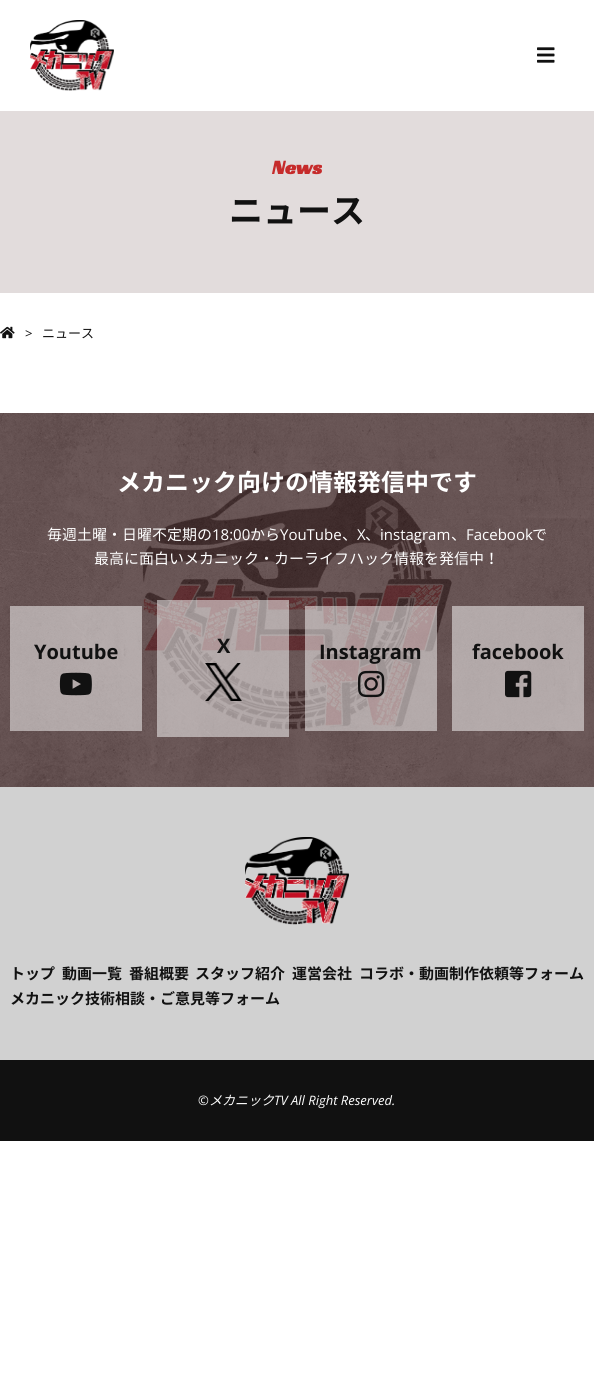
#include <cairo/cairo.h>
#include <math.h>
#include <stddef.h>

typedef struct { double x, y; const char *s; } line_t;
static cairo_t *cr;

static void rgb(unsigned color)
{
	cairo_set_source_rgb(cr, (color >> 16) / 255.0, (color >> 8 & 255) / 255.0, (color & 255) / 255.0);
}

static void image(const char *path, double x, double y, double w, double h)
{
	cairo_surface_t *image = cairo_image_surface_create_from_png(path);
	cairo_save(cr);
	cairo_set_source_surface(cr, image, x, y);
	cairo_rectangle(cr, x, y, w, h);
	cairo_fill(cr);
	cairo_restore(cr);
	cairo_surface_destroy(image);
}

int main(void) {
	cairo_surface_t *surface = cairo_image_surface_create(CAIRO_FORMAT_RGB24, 594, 1385);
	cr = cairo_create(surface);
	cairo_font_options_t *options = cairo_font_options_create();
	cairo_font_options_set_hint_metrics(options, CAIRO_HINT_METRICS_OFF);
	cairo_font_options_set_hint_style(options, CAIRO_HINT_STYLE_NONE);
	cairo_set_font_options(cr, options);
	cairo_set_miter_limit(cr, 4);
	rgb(0xffffff);
	cairo_paint(cr);
	image("img/1.png", 30, 20, 84, 71);
	image("img/2.png", 537, 47, 18, 16);
	rgb(0xe2dcdc);
	cairo_rectangle(cr, 0, 111, 594, 182);
	cairo_fill(cr);
	image("img/3.png", 0, 326, 15, 13);
	image("img/4.png", 0, 413, 594, 374);
	cairo_set_source_rgba(cr, 1, 1, 1, 0.5);
	cairo_rectangle(cr, 10, 606, 132, 125);
	cairo_fill(cr);
	image("img/5.png", 59, 672, 33, 24);
	cairo_rectangle(cr, 157, 600, 132, 137);
	cairo_fill(cr);
	image("img/6.png", 205, 663, 37, 38);
	cairo_rectangle(cr, 305, 606, 132, 125);
	cairo_fill(cr);
	image("img/7.png", 358, 670, 27, 28);
	cairo_rectangle(cr, 452, 606, 132, 125);
	cairo_fill(cr);
	image("img/8.png", 505, 670, 27, 28);
	rgb(0xd1d1d1);
	cairo_rectangle(cr, 0, 787, 594, 273);
	cairo_fill(cr);
	image("img/9.png", 245, 837, 104, 88);
	rgb(0x111111);
	cairo_rectangle(cr, 0, 1060, 594, 81);
	cairo_fill(cr);
	cairo_select_font_face(cr, "Racing Sans One", CAIRO_FONT_SLANT_NORMAL, CAIRO_FONT_WEIGHT_BOLD);
	cairo_set_font_size(cr, 20);
	rgb(0xc62b2b);
	cairo_move_to(cr, 272, 174);
	cairo_show_text(cr, "News");
	cairo_select_font_face(cr, "Noto Sans JP", CAIRO_FONT_SLANT_NORMAL, CAIRO_FONT_WEIGHT_BOLD);
	cairo_set_font_size(cr, 34);
	rgb(0x111111);
	cairo_move_to(cr, 229, 223);
	cairo_show_text(cr, "ニュース");
	cairo_select_font_face(cr, "Open Sans", CAIRO_FONT_SLANT_NORMAL, CAIRO_FONT_WEIGHT_NORMAL);
	cairo_set_font_size(cr, 13);
	cairo_move_to(cr, 25, 338);
	cairo_show_text(cr, ">");
	cairo_select_font_face(cr, "Noto Sans JP", CAIRO_FONT_SLANT_NORMAL, CAIRO_FONT_WEIGHT_NORMAL);
	cairo_move_to(cr, 42, 338);
	cairo_show_text(cr, "ニュース");
	cairo_select_font_face(cr, "Noto Sans JP", CAIRO_FONT_SLANT_NORMAL, CAIRO_FONT_WEIGHT_BOLD);
	cairo_set_font_size(cr, 24);
	rgb(0xffffff);
	cairo_move_to(cr, 117, 491);
	cairo_show_text(cr, "メカニック向けの情報発信中です");
	cairo_select_font_face(cr, "Noto Sans JP", CAIRO_FONT_SLANT_NORMAL, CAIRO_FONT_WEIGHT_NORMAL);
	cairo_set_font_size(cr, 15);
	cairo_move_to(cr, 47, 540);
	cairo_show_text(cr, "毎週土曜・日曜不定期の");
	cairo_select_font_face(cr, "Open Sans", CAIRO_FONT_SLANT_NORMAL, CAIRO_FONT_WEIGHT_NORMAL);
	cairo_move_to(cr, 212, 540);
	cairo_show_text(cr, "18:00");
	cairo_select_font_face(cr, "Noto Sans JP", CAIRO_FONT_SLANT_NORMAL, CAIRO_FONT_WEIGHT_NORMAL);
	cairo_move_to(cr, 250, 540);
	cairo_show_text(cr, "から");
	cairo_select_font_face(cr, "Open Sans", CAIRO_FONT_SLANT_NORMAL, CAIRO_FONT_WEIGHT_NORMAL);
	cairo_move_to(cr, 280, 540);
	cairo_show_text(cr, "YouTube");
	cairo_select_font_face(cr, "Noto Sans JP", CAIRO_FONT_SLANT_NORMAL, CAIRO_FONT_WEIGHT_NORMAL);
	cairo_move_to(cr, 342, 540);
	cairo_show_text(cr, "、");
	cairo_select_font_face(cr, "Open Sans", CAIRO_FONT_SLANT_NORMAL, CAIRO_FONT_WEIGHT_NORMAL);
	cairo_move_to(cr, 357, 540);
	cairo_show_text(cr, "X");
	cairo_select_font_face(cr, "Noto Sans JP", CAIRO_FONT_SLANT_NORMAL, CAIRO_FONT_WEIGHT_NORMAL);
	cairo_move_to(cr, 365, 540);
	cairo_show_text(cr, "、");
	cairo_select_font_face(cr, "Open Sans", CAIRO_FONT_SLANT_NORMAL, CAIRO_FONT_WEIGHT_NORMAL);
	cairo_move_to(cr, 380, 540);
	cairo_show_text(cr, "instagram");
	cairo_select_font_face(cr, "Noto Sans JP", CAIRO_FONT_SLANT_NORMAL, CAIRO_FONT_WEIGHT_NORMAL);
	cairo_move_to(cr, 451, 540);
	cairo_show_text(cr, "、");
	cairo_select_font_face(cr, "Open Sans", CAIRO_FONT_SLANT_NORMAL, CAIRO_FONT_WEIGHT_NORMAL);
	cairo_move_to(cr, 466, 540);
	cairo_show_text(cr, "Facebook");
	cairo_select_font_face(cr, "Noto Sans JP", CAIRO_FONT_SLANT_NORMAL, CAIRO_FONT_WEIGHT_NORMAL);
	cairo_move_to(cr, 532, 540);
	cairo_show_text(cr, "で");
	cairo_move_to(cr, 94, 564);
	cairo_show_text(cr, "最高に面白いメカニック・カーライフハック情報を発信中！");
	cairo_select_font_face(cr, "Open Sans", CAIRO_FONT_SLANT_NORMAL, CAIRO_FONT_WEIGHT_BOLD);
	cairo_set_font_size(cr, 20);
	rgb(0x111111);
	{
		static const line_t items[] = {
			{34, 659, "Youtube"},
			{217, 653, "X"},
			{319, 659, "Instagram"},
			{472, 659, "facebook"},
		};
		for (size_t i = 0; i < sizeof items / sizeof *items; i++) {
			cairo_move_to(cr, items[i].x, items[i].y);
			cairo_show_text(cr, items[i].s);
		}
	}
	cairo_select_font_face(cr, "Noto Sans JP", CAIRO_FONT_SLANT_NORMAL, CAIRO_FONT_WEIGHT_BOLD);
	cairo_set_font_size(cr, 15);
	{
		static const line_t items[] = {
			{10, 979, "トップ"},
			{62, 979, "動画一覧"},
			{129, 979, "番組概要"},
			{195, 979, "スタッフ紹介"},
			{292, 979, "運営会社"},
			{359, 979, "コラボ・動画制作依頼等フォーム"},
			{10, 1004, "メカニック技術相談・ご意見等フォーム"},
		};
		for (size_t i = 0; i < sizeof items / sizeof *items; i++) {
			cairo_move_to(cr, items[i].x, items[i].y);
			cairo_show_text(cr, items[i].s);
		}
	}
	cairo_select_font_face(cr, "Open Sans", CAIRO_FONT_SLANT_ITALIC, CAIRO_FONT_WEIGHT_NORMAL);
	cairo_set_font_size(cr, 13);
	rgb(0xffffff);
	cairo_move_to(cr, 198, 1105);
	cairo_show_text(cr, "©");
	cairo_select_font_face(cr, "Noto Sans JP", CAIRO_FONT_SLANT_ITALIC, CAIRO_FONT_WEIGHT_NORMAL);
	cairo_move_to(cr, 209, 1105);
	cairo_show_text(cr, "メカニック");
	cairo_select_font_face(cr, "Open Sans", CAIRO_FONT_SLANT_ITALIC, CAIRO_FONT_WEIGHT_NORMAL);
	cairo_move_to(cr, 274, 1105);
	cairo_show_text(cr, "TV All Right Reserved.");
	cairo_surface_write_to_png(surface, "page.png");
	cairo_font_options_destroy(options);
	cairo_destroy(cr);
	cairo_surface_destroy(surface);
	return 0;
}
